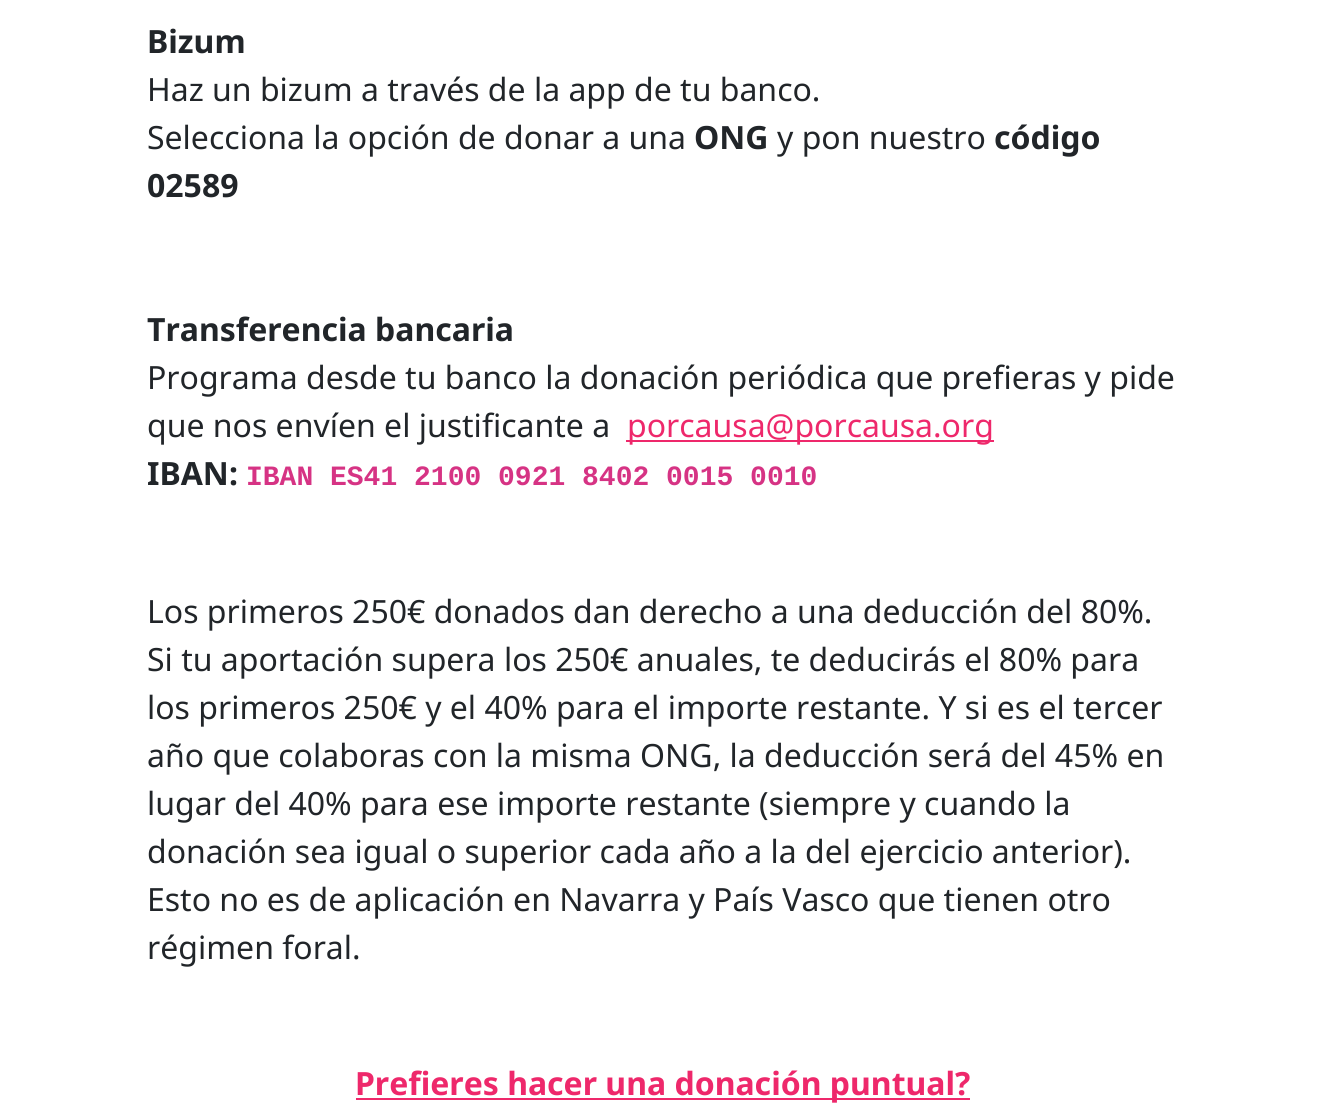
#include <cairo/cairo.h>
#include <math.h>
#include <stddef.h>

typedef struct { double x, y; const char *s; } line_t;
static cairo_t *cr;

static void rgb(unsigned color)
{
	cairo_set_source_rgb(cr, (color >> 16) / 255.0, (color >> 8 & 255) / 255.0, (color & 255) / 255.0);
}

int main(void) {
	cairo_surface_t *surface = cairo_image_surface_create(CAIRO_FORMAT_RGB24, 1326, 1119);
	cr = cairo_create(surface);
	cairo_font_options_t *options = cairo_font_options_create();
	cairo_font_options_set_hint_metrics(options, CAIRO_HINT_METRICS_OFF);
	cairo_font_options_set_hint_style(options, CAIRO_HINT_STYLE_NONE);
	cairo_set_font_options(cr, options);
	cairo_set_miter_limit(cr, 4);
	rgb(0xffffff);
	cairo_paint(cr);
	rgb(0xee286b);
	cairo_rectangle(cr, 626, 440, 368, 2);
	cairo_fill(cr);
	cairo_rectangle(cr, 356, 1098, 614, 2);
	cairo_fill(cr);
	cairo_select_font_face(cr, "Noto Sans", CAIRO_FONT_SLANT_NORMAL, CAIRO_FONT_WEIGHT_BOLD);
	cairo_set_font_size(cr, 32);
	rgb(0x212529);
	cairo_move_to(cr, 147, 53);
	cairo_show_text(cr, "Bizum");
	cairo_select_font_face(cr, "Noto Sans", CAIRO_FONT_SLANT_NORMAL, CAIRO_FONT_WEIGHT_NORMAL);
	cairo_move_to(cr, 147, 101);
	cairo_show_text(cr, "Haz un bizum a través de la app de tu banco.");
	cairo_move_to(cr, 147, 149);
	cairo_show_text(cr, "Selecciona la opción de donar a una");
	cairo_select_font_face(cr, "Noto Sans", CAIRO_FONT_SLANT_NORMAL, CAIRO_FONT_WEIGHT_BOLD);
	cairo_move_to(cr, 694, 149);
	cairo_show_text(cr, "ONG");
	cairo_select_font_face(cr, "Noto Sans", CAIRO_FONT_SLANT_NORMAL, CAIRO_FONT_WEIGHT_NORMAL);
	cairo_move_to(cr, 777, 149);
	cairo_show_text(cr, "y pon nuestro");
	cairo_select_font_face(cr, "Noto Sans", CAIRO_FONT_SLANT_NORMAL, CAIRO_FONT_WEIGHT_BOLD);
	{
		static const line_t items[] = {
			{994, 149, "código"},
			{147, 197, "02589"},
			{147, 341, "Transferencia bancaria"},
		};
		for (size_t i = 0; i < sizeof items / sizeof *items; i++) {
			cairo_move_to(cr, items[i].x, items[i].y);
			cairo_show_text(cr, items[i].s);
		}
	}
	cairo_select_font_face(cr, "Noto Sans", CAIRO_FONT_SLANT_NORMAL, CAIRO_FONT_WEIGHT_NORMAL);
	cairo_move_to(cr, 147, 389);
	cairo_show_text(cr, "Programa desde tu banco la donación periódica que prefieras y pide");
	cairo_move_to(cr, 147, 437);
	cairo_show_text(cr, "que nos envíen el justificante a");
	rgb(0xee286b);
	cairo_move_to(cr, 627, 437);
	cairo_show_text(cr, "porcausa@porcausa.org");
	cairo_select_font_face(cr, "Noto Sans", CAIRO_FONT_SLANT_NORMAL, CAIRO_FONT_WEIGHT_BOLD);
	rgb(0x212529);
	cairo_move_to(cr, 147, 485);
	cairo_show_text(cr, "IBAN:");
	cairo_select_font_face(cr, "Liberation Mono", CAIRO_FONT_SLANT_NORMAL, CAIRO_FONT_WEIGHT_BOLD);
	cairo_set_font_size(cr, 28);
	rgb(0xd63384);
	cairo_move_to(cr, 246, 485);
	cairo_show_text(cr, "IBAN ES41 2100 0921 8402 0015 0010");
	cairo_select_font_face(cr, "Noto Sans", CAIRO_FONT_SLANT_NORMAL, CAIRO_FONT_WEIGHT_NORMAL);
	cairo_set_font_size(cr, 32);
	rgb(0x212529);
	{
		static const line_t items[] = {
			{147, 623, "Los primeros 250€ donados dan derecho a una deducción del 80%."},
			{147, 671, "Si tu aportación supera los 250€ anuales, te deducirás el 80% para"},
			{147, 719, "los primeros 250€ y el 40% para el importe restante. Y si es el tercer"},
			{147, 767, "año que colaboras con la misma ONG, la deducción será del 45% en"},
			{147, 815, "lugar del 40% para ese importe restante (siempre y cuando la"},
			{147, 863, "donación sea igual o superior cada año a la del ejercicio anterior)."},
			{147, 911, "Esto no es de aplicación en Navarra y País Vasco que tienen otro"},
			{147, 959, "régimen foral."},
		};
		for (size_t i = 0; i < sizeof items / sizeof *items; i++) {
			cairo_move_to(cr, items[i].x, items[i].y);
			cairo_show_text(cr, items[i].s);
		}
	}
	cairo_select_font_face(cr, "Noto Sans", CAIRO_FONT_SLANT_NORMAL, CAIRO_FONT_WEIGHT_BOLD);
	rgb(0xee286b);
	cairo_move_to(cr, 355, 1095);
	cairo_show_text(cr, "Prefieres hacer una donación puntual?");
	cairo_surface_write_to_png(surface, "page.png");
	cairo_font_options_destroy(options);
	cairo_destroy(cr);
	cairo_surface_destroy(surface);
	return 0;
}
